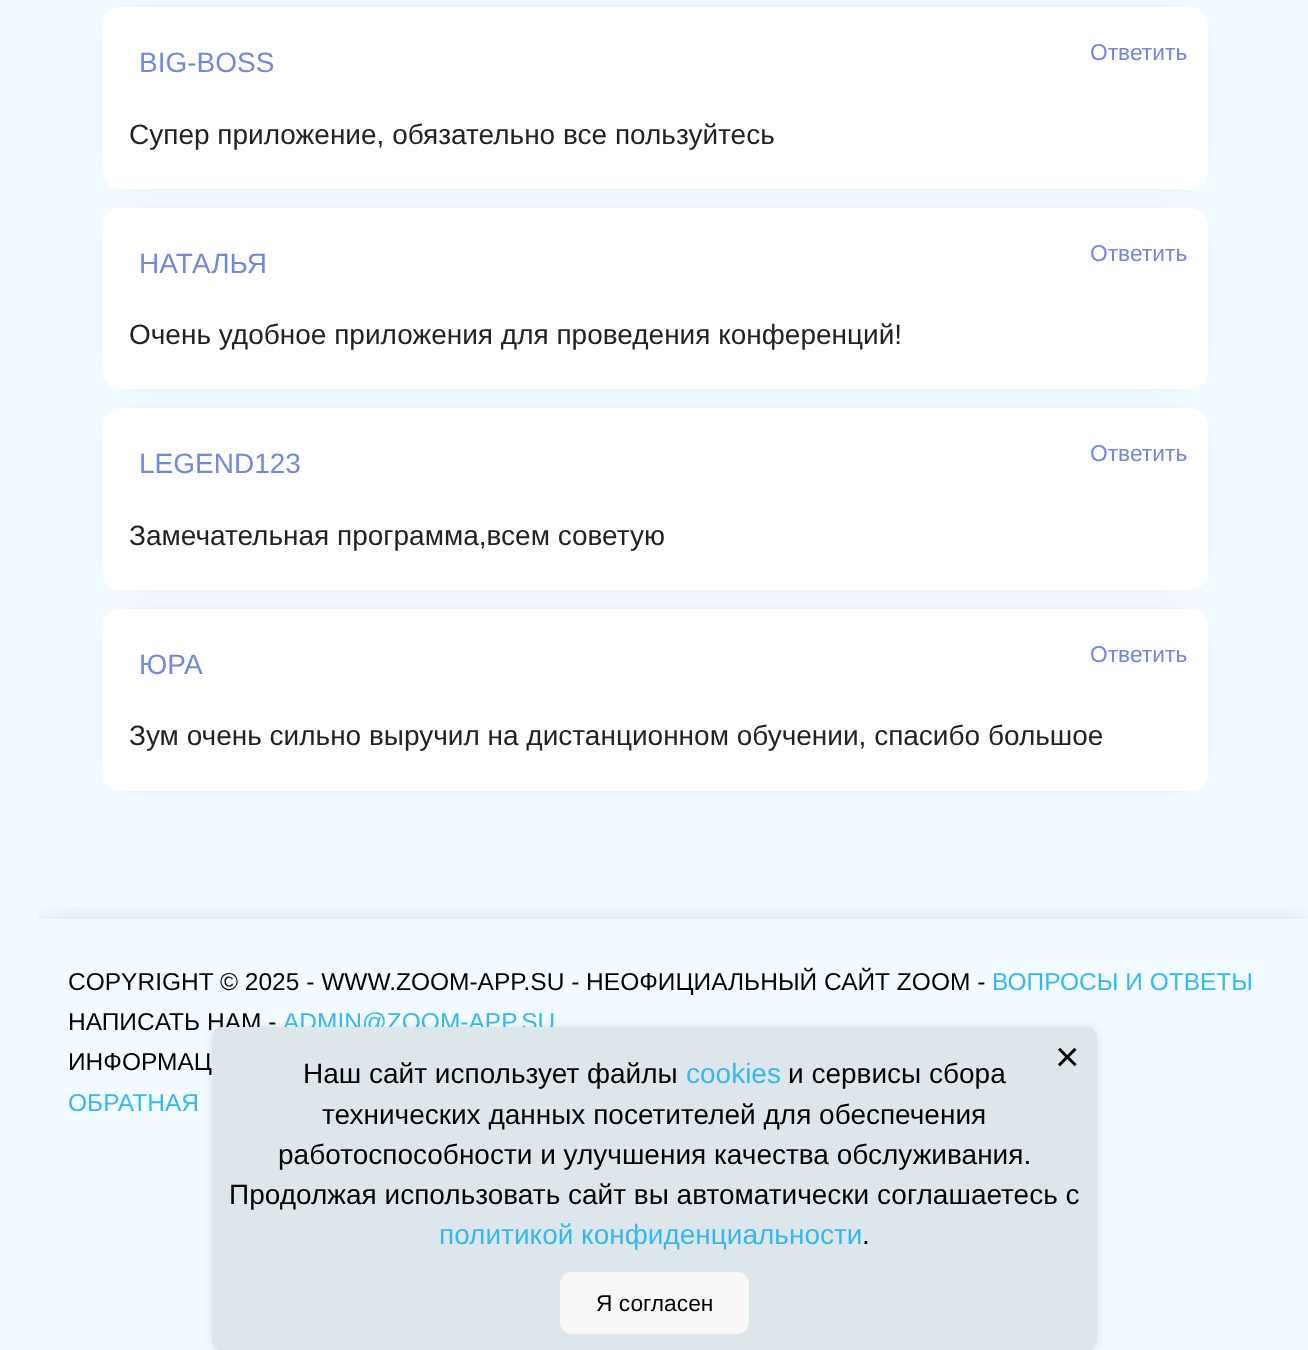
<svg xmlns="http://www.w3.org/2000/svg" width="1308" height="1350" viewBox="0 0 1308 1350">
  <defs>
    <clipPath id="clip1"><path d="M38 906h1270v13H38z"/></clipPath>
  </defs>
  <rect width="100%" height="100%" fill="#f2fbff"/>
  <path d="M128 33h1053v130H128z" fill="#00000080" filter="blur(17.5px)"/>
  <path d="M120 7H1190C1200 7 1208 15 1208 25V96H102V25C102 15 110 7 120 7Z" fill="#fff"/>
  <path d="M128 235h1053v127H128z" fill="#00000080" filter="blur(17.5px)"/>
  <path d="M102 96H1208V171C1208 181 1200 189 1190 189H120C110 189 102 181 102 171Z" fill="#fff"/>
  <path d="M120 208H1190C1200 208 1208 216 1208 226V298H102V226C102 216 110 208 120 208Z" fill="#fff"/>
  <path d="M128 434h1053v130H128z" fill="#00000080" filter="blur(17.5px)"/>
  <path d="M102 298H1208V371C1208 381 1200 389 1190 389H120C110 389 102 381 102 371Z" fill="#fff"/>
  <path d="M120 408H1190C1200 408 1208 416 1208 426V497H102V426C102 416 110 408 120 408Z" fill="#fff"/>
  <path d="M128 635h1053v130H128z" fill="#00000080" filter="blur(17.5px)"/>
  <path d="M102 497H1208V572C1208 582 1200 590 1190 590H120C110 590 102 582 102 572Z" fill="#fff"/>
  <path d="M120 609H1190C1200 609 1208 617 1208 627V698H102V627C102 617 110 609 120 609Z" fill="#fff"/>
  <path d="M102 698H1208V773C1208 783 1200 791 1190 791H120C110 791 102 783 102 773Z" fill="#fff"/>
  <g clip-path="url(#clip1)">
    <path d="M44 928h1262v344H44z" fill="#00000033" filter="blur(17.5px)"/>
  </g>
  <rect x="212" y="1027" width="885" height="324" rx="11" fill="#0000001a" filter="blur(5px)"/>
  <text x="139" y="72" font-family="Liberation Sans" font-size="28" fill="#7289da">BIG-BOSS</text>
  <text x="1090" y="60" font-family="Liberation Sans" font-size="22.75" fill="#7289da">Ответить</text>
  <text x="129" y="144" font-family="Liberation Sans" font-size="28" fill="#222">Супер приложение, обязательно все пользуйтесь</text>
  <text x="139" y="273" font-family="Liberation Sans" font-size="28" fill="#7289da">НАТАЛЬЯ</text>
  <text x="1090" y="261" font-family="Liberation Sans" font-size="22.75" fill="#7289da">Ответить</text>
  <text x="129" y="344" font-family="Liberation Sans" font-size="28" fill="#222">Очень удобное приложения для проведения конференций!</text>
  <text x="139" y="473" font-family="Liberation Sans" font-size="28" fill="#7289da">LEGEND123</text>
  <text x="1090" y="461" font-family="Liberation Sans" font-size="22.75" fill="#7289da">Ответить</text>
  <text x="129" y="545" font-family="Liberation Sans" font-size="28" fill="#222">Замечательная программа,всем советую</text>
  <text x="139" y="674" font-family="Liberation Sans" font-size="28" fill="#7289da">ЮРА</text>
  <text x="1090" y="662" font-family="Liberation Sans" font-size="22.75" fill="#7289da">Ответить</text>
  <text x="129" y="745" font-family="Liberation Sans" font-size="28" fill="#222">Зум очень сильно выручил на дистанционном обучении, спасибо большое</text>
  <text x="68" y="990" font-family="Liberation Sans" font-size="24.5" fill="#000">COPYRIGHT © 2025 - WWW.ZOOM-APP.SU - НЕОФИЦИАЛЬНЫЙ САЙТ ZOOM -</text>
  <text x="992" y="990" font-family="Liberation Sans" font-size="24.5" fill="#38b7ee">ВОПРОСЫ И ОТВЕТЫ</text>
  <text x="68" y="1030" font-family="Liberation Sans" font-size="24.5" fill="#000">НАПИCАТЬ НАМ -</text>
  <text x="283" y="1030" font-family="Liberation Sans" font-size="24.5" fill="#38b7ee">ADMIN@ZOOM-APP.SU</text>
  <text x="68" y="1070" font-family="Liberation Sans" font-size="24.5" fill="#000">ИНФОРМАЦ</text>
  <rect x="212" y="1027" width="885" height="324" rx="11" fill="#dde6eb"/>
  <text x="1055" y="1071" font-family="Liberation Sans" font-size="42" fill="#000">×</text>
  <text x="303" y="1083" font-family="Liberation Sans" font-size="28" fill="#000">Наш сайт использует файлы</text>
  <text x="686" y="1083" font-family="Liberation Sans" font-size="28" fill="#38b7ee">cookies</text>
  <g font-family="Liberation Sans" font-size="28" fill="#000">
    <text x="788" y="1083">и сервисы сбора</text>
    <text x="322" y="1124">технических данных посетителей для обеспечения</text>
    <text x="278" y="1164">работоспособности и улучшения качества обслуживания.</text>
    <text x="229" y="1204">Продолжая использовать сайт вы автоматически соглашаетесь с</text>
  </g>
  <text x="439" y="1244" font-family="Liberation Sans" font-size="28" fill="#38b7ee">политикой конфиденциальности</text>
  <text x="862" y="1244" font-family="Liberation Sans" font-size="28" fill="#000">.</text>
  <rect x="560" y="1272" width="189" height="62" rx="12" fill="#f8f8f8"/>
  <text x="596" y="1311" font-family="Liberation Sans" font-size="22.75" fill="#000">Я согласен</text>
  <text x="68" y="1111" font-family="Liberation Sans" font-size="24.5" fill="#38b7ee">ОБРАТНАЯ</text>
</svg>
